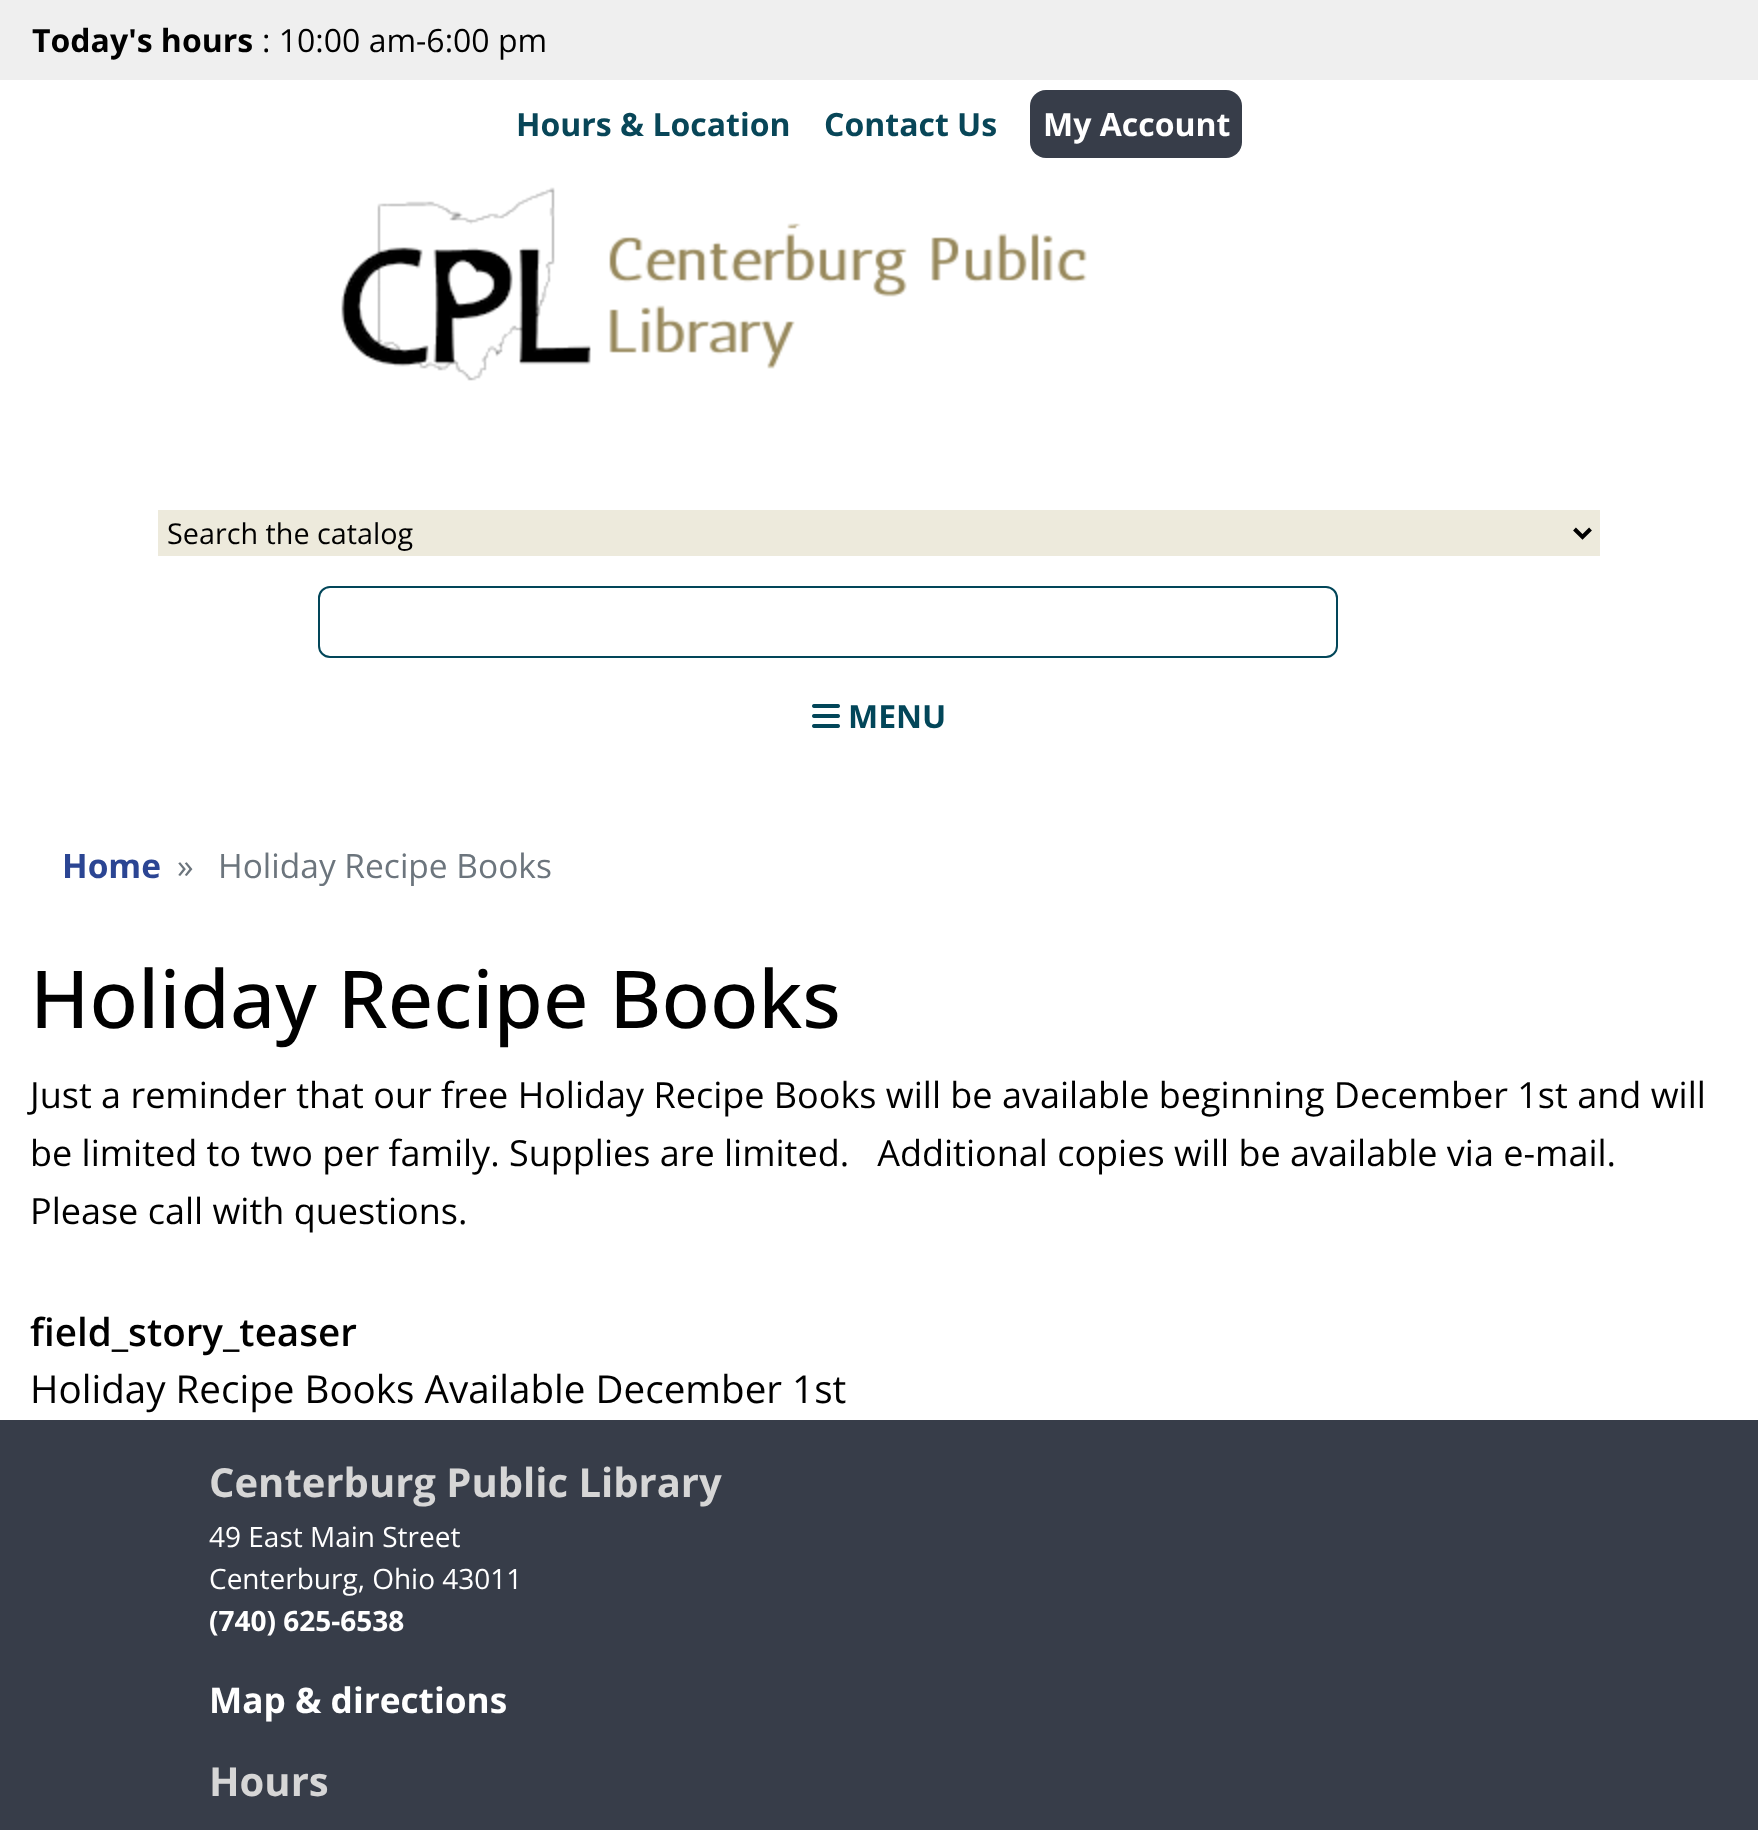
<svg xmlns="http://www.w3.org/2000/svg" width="1758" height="1830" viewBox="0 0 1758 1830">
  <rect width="100%" height="100%" fill="#fff"/>
  <path d="M0 0h1758v80H0z" fill="#efefef"/>
  <rect x="1030" y="90" width="212" height="68" rx="16" fill="#373d49"/>
  <image x="341" y="187" width="746" height="194" href="img/1.png"/>
  <path d="M158 510h1442v46H158z" fill="#edeadc"/>
  <path d="M1574.5 529L1582.5 537L1590.5 529" fill="none" stroke="#000" stroke-width="4"/>
  <rect x="319" y="587" width="1018" height="70" rx="11" fill="none" stroke="#024659" stroke-width="2"/>
  <image x="812" y="704" width="28" height="24" href="img/2.png"/>
  <path d="M0 1420h1758v410H0z" fill="#373d49"/>
  <text x="32" y="52" font-family="Open Sans" font-size="32" font-weight="bold" fill="#000">Today's hours</text>
  <text x="262" y="52" font-family="Open Sans" font-size="32" fill="#000">: 10:00 am-6:00 pm</text>
  <g font-family="Open Sans" font-size="32" font-weight="bold" fill="#084658">
    <text x="516" y="136">Hours &amp; Location</text>
    <text x="824" y="136">Contact Us</text>
  </g>
  <text x="1043" y="136" font-family="Open Sans" font-size="32" font-weight="bold" fill="#fff">My Account</text>
  <text x="167" y="544" font-family="Open Sans" font-size="28.75" fill="#000">Search the catalog</text>
  <text x="848" y="728" font-family="Open Sans" font-size="32" font-weight="bold" fill="#024659">MENU</text>
  <text x="62" y="878" font-family="Open Sans" font-size="33.5" font-weight="bold" fill="#2b4593">Home</text>
  <g font-family="Open Sans" font-size="33.5" fill="#6c757d">
    <text x="177" y="878">»</text>
    <text x="218" y="878">Holiday Recipe Books</text>
  </g>
  <text x="30" y="1028" font-family="Open Sans" font-size="80" font-weight="500" fill="#000">Holiday Recipe Books</text>
  <g font-family="Open Sans" font-size="36" fill="#000">
    <text x="30" y="1108">Just a reminder that our free Holiday Recipe Books will be available beginning December 1st and will</text>
    <text x="30" y="1166" xml:space="preserve">be limited to two per family. Supplies are limited.   Additional copies will be available via e-mail.</text>
    <text x="30" y="1224">Please call with questions.</text>
  </g>
  <text x="30" y="1346" font-family="Open Sans" font-size="38.6" font-weight="600" fill="#000">field_story_teaser</text>
  <text x="30" y="1403" font-family="Open Sans" font-size="38.6" fill="#000">Holiday Recipe Books Available December 1st</text>
  <text x="209" y="1497" font-family="Open Sans" font-size="40" font-weight="bold" fill="#d6d6d6">Centerburg Public Library</text>
  <g font-family="Open Sans" font-size="28" fill="#fff">
    <text x="209" y="1547">49 East Main Street</text>
    <text x="209" y="1589">Centerburg, Ohio 43011</text>
  </g>
  <text x="209" y="1631" font-family="Open Sans" font-size="28" font-weight="bold" fill="#fff">(740) 625-6538</text>
  <text x="209" y="1713" font-family="Open Sans" font-size="35.25" font-weight="bold" fill="#fff">Map &amp; directions</text>
  <text x="209" y="1796" font-family="Open Sans" font-size="40" font-weight="bold" fill="#d6d6d6">Hours</text>
</svg>
